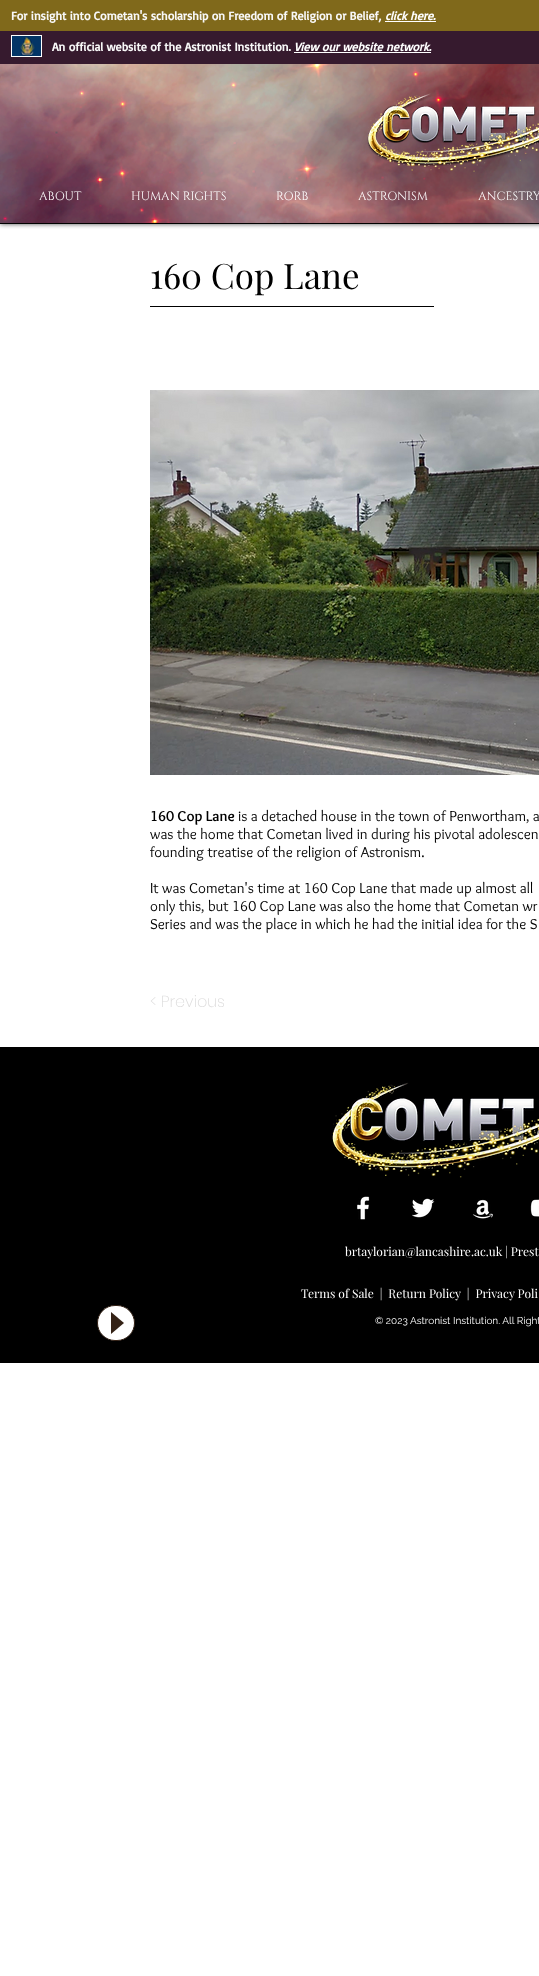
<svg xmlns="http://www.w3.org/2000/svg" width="539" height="1976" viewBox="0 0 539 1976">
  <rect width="100%" height="100%" fill="#fff"/>
  <path d="M0 0h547v224H0z" fill="#000000b3" filter="blur(2.5px)"/>
  <path d="M0 223h539v1H0z" fill="#000"/>
  <path d="M0 0h539v31H0z" fill="#80691b"/>
  <path d="M385 21h51v1H385z" fill="#fff"/>
  <path d="M0 31h539v33H0z" fill="#361a2e"/>
  <path d="M11 35h31v22H11z" fill="#fff"/>
  <image x="12" y="36" width="29" height="20" href="img/1.png"/>
  <path d="M294 52h137v1H294z" fill="#fff"/>
  <image x="0" y="64" width="539" height="159" href="img/2.png"/>
  <image x="367" y="93" width="172" height="79" href="img/3.png"/>
  <path d="M150 306h284v1H150z" fill="#000"/>
  <image x="150" y="390" width="389" height="385" href="img/4.png"/>
  <path d="M0 1047h539v316H0z" fill="#000"/>
  <image x="332" y="1082" width="207" height="96" href="img/5.png"/>
  <image x="357" y="1196" width="13" height="24" href="img/6.png"/>
  <image x="412" y="1198" width="23" height="20" href="img/7.png"/>
  <image x="472" y="1199" width="21" height="20" href="img/8.png"/>
  <image x="530" y="1199" width="9" height="18" href="img/9.png"/>
  <rect x="97.5" y="1305.5" width="37" height="35" rx="17.5" fill="#fff" stroke="#342216"/>
  <path d="M111 1334V1312L124 1323Z" fill="#342216"/>
  <text x="11" y="20" font-family="Basic" font-size="12" font-weight="bold" fill="#f8f8f8">For insight into Cometan's scholarship on Freedom of Religion or Belief,</text>
  <text x="385" y="20" font-family="Basic" font-size="12" font-weight="bold" font-style="italic" fill="#fff">click here.</text>
  <text x="52" y="51" font-family="Basic" font-size="12" font-weight="bold" fill="#f8f8f8">An official website of the Astronist Institution.</text>
  <text x="294" y="51" font-family="Basic" font-size="12" font-weight="bold" font-style="italic" fill="#fff">View our website network.</text>
  <g font-family="Cinzel" font-size="12" fill="#fff">
    <text x="39" y="200">ABOUT</text>
    <text x="131" y="200">HUMAN RIGHTS</text>
    <text x="276" y="200">RORB</text>
    <text x="358" y="200">ASTRONISM</text>
    <text x="478" y="200">ANCESTRY</text>
  </g>
  <text x="150" y="289" font-family="Playfair Display" font-size="35" fill="#000">160 Cop Lane</text>
  <text x="150" y="821" font-family="Overlock" font-size="15" font-weight="bold" fill="#000">160 Cop Lane</text>
  <g font-family="Overlock" font-size="15" fill="#000">
    <text x="238" y="821">is a detached house in the town of Penwortham, a</text>
    <text x="150" y="839">was the home that Cometan lived in during his pivotal adolescen</text>
    <text x="150" y="857">founding treatise of the religion of Astronism.</text>
    <text x="150" y="893">It was Cometan's time at 160 Cop Lane that made up almost all</text>
    <text x="150" y="911">only this, but 160 Cop Lane was also the home that Cometan wr</text>
    <text x="150" y="929">Series and was the place in which he had the initial idea for the S</text>
  </g>
  <text x="150" y="1007" font-family="Poppins" font-size="16" font-weight="200" fill="#dddcdc">&lt; Previous</text>
  <g font-family="Playfair Display" font-size="12" fill="#fff">
    <text x="345" y="1256">brtaylorian@lancashire.ac.uk | Prest</text>
    <text x="301" y="1298" xml:space="preserve">Terms of Sale  |  Return Policy  |  Privacy Poli</text>
  </g>
  <text x="375" y="1324" font-family="Raleway" font-size="10" fill="#fff">© 2023 Astronist Institution. All Right</text>
</svg>
